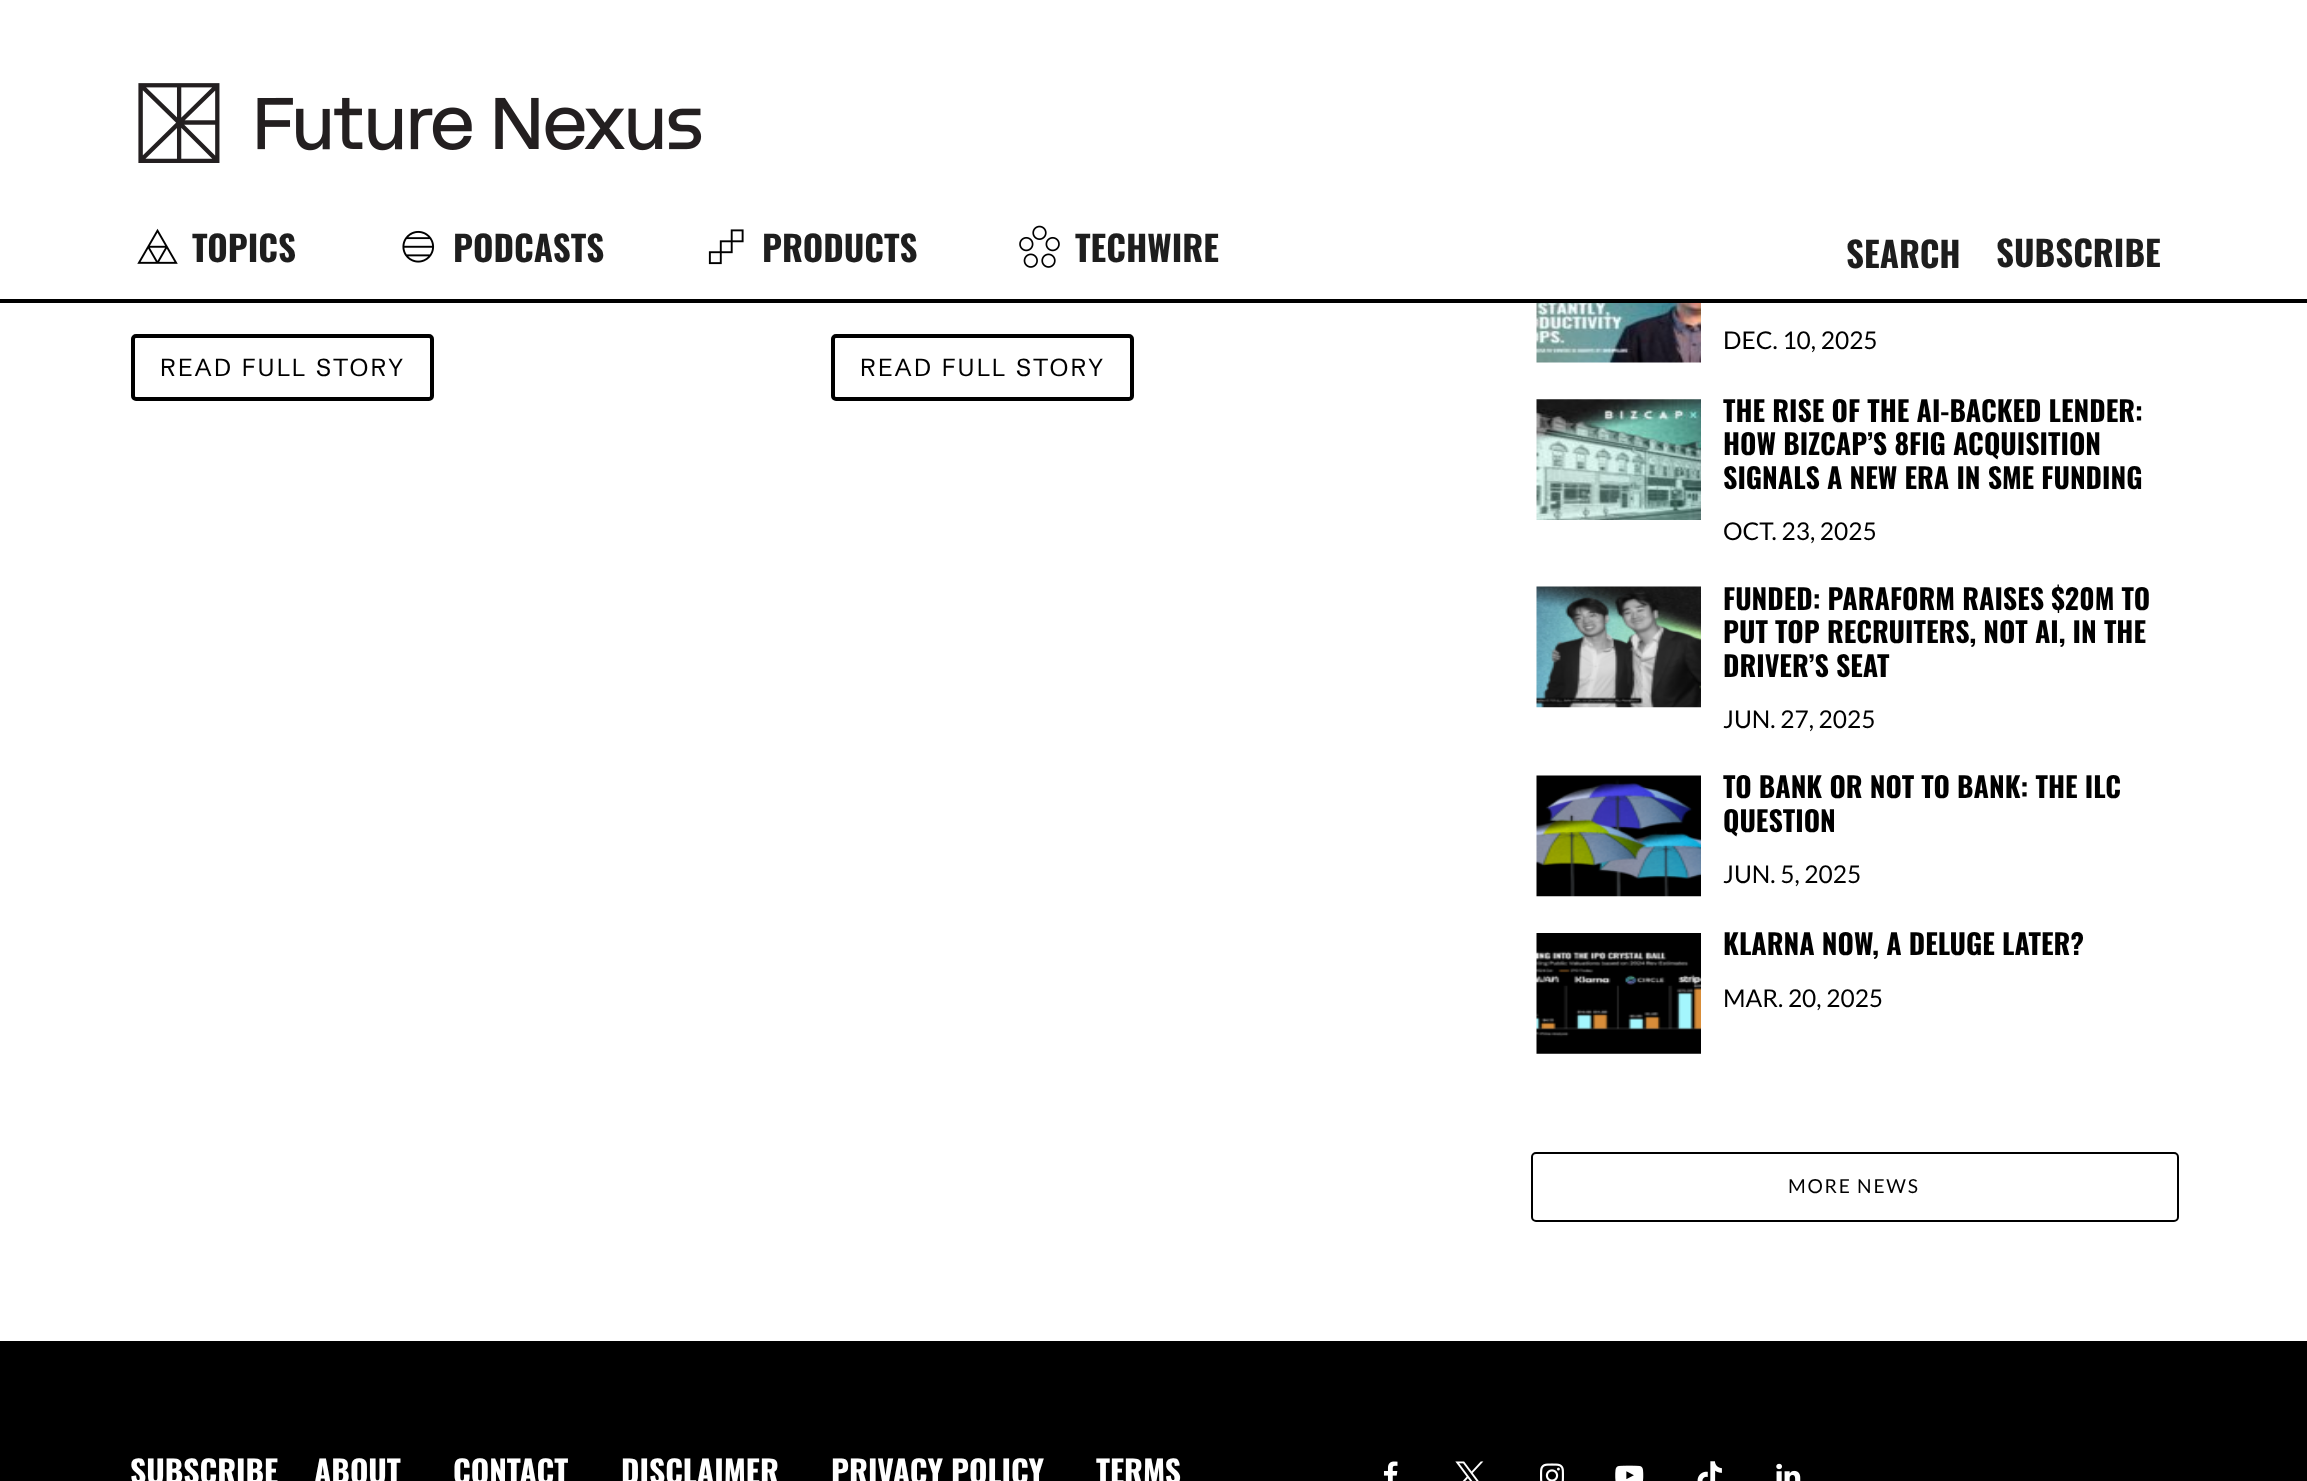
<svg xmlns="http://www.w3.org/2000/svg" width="2307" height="1481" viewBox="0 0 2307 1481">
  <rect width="100%" height="100%" fill="#fff"/>
  <path d="M0 299h2307v4H0z" fill="#000"/>
  <image x="138" y="83" width="564" height="80" href="img/1.png"/>
  <image x="137" y="228" width="41" height="36" href="img/2.png"/>
  <image x="402" y="230" width="33" height="33" href="img/3.png"/>
  <image x="708" y="229" width="36" height="36" href="img/4.png"/>
  <image x="1019" y="225" width="41" height="43" href="img/5.png"/>
  <rect x="133" y="336" width="299" height="63" rx="3" fill="none" stroke="#000" stroke-width="4"/>
  <rect x="833" y="336" width="299" height="63" rx="3" fill="none" stroke="#000" stroke-width="4"/>
  <image x="1536" y="303" width="165" height="60" href="img/6.png"/>
  <image x="1536" y="399" width="165" height="121" href="img/7.png"/>
  <image x="1536" y="586" width="165" height="122" href="img/8.png"/>
  <image x="1536" y="775" width="165" height="122" href="img/9.png"/>
  <image x="1536" y="933" width="165" height="121" href="img/10.png"/>
  <rect x="1532" y="1153" width="646" height="68" rx="4" fill="none" stroke="#000" stroke-width="2"/>
  <path d="M0 1341h2307v140H0z" fill="#000"/>
  <image x="1383" y="1461" width="15" height="20" href="img/11.png"/>
  <image x="1455" y="1461" width="29" height="20" href="img/12.png"/>
  <image x="1540" y="1463" width="24" height="18" href="img/13.png"/>
  <image x="1615" y="1465" width="29" height="16" href="img/14.png"/>
  <image x="1697" y="1461" width="25" height="20" href="img/15.png"/>
  <image x="1776" y="1463" width="25" height="18" href="img/16.png"/>
  <g font-family="Oswald" font-size="35" font-weight="bold" fill="#1e1e1e">
    <text x="192" y="262">TOPICS</text>
    <text x="453" y="262">PODCASTS</text>
    <text x="762" y="262">PRODUCTS</text>
    <text x="1075" y="262">TECHWIRE</text>
    <text x="1846" y="268">SEARCH</text>
    <text x="1996" y="267">SUBSCRIBE</text>
  </g>
  <g font-family="Schibsted Grotesk" font-size="24.5" letter-spacing="2.25" fill="#000">
    <text x="160" y="376">READ FULL STORY</text>
    <text x="860" y="376">READ FULL STORY</text>
  </g>
  <text x="1723" y="349" font-family="Lato" font-size="24.5" fill="#000">DEC. 10, 2025</text>
  <g font-family="Oswald" font-size="28" font-weight="bold" fill="#000">
    <text x="1723" y="422">THE RISE OF THE AI-BACKED LENDER:</text>
    <text x="1723" y="455">HOW BIZCAP’S 8FIG ACQUISITION</text>
    <text x="1723" y="489">SIGNALS A NEW ERA IN SME FUNDING</text>
  </g>
  <text x="1723" y="540" font-family="Lato" font-size="24.5" fill="#000">OCT. 23, 2025</text>
  <g font-family="Oswald" font-size="28" font-weight="bold" fill="#000">
    <text x="1723" y="610">FUNDED: PARAFORM RAISES $20M TO</text>
    <text x="1723" y="643">PUT TOP RECRUITERS, NOT AI, IN THE</text>
    <text x="1723" y="677">DRIVER’S SEAT</text>
  </g>
  <text x="1723" y="728" font-family="Lato" font-size="24.5" fill="#000">JUN. 27, 2025</text>
  <g font-family="Oswald" font-size="28" font-weight="bold" fill="#000">
    <text x="1723" y="798">TO BANK OR NOT TO BANK: THE ILC</text>
    <text x="1723" y="832">QUESTION</text>
  </g>
  <text x="1723" y="883" font-family="Lato" font-size="24.5" fill="#000">JUN. 5, 2025</text>
  <text x="1723" y="955" font-family="Oswald" font-size="28" font-weight="bold" fill="#000">KLARNA NOW, A DELUGE LATER?</text>
  <text x="1723" y="1007" font-family="Lato" font-size="24.5" fill="#000">MAR. 20, 2025</text>
  <text x="1788" y="1193" font-family="Lato" font-size="19.25" letter-spacing="1.75" fill="#000">MORE NEWS</text>
  <g font-family="Oswald" font-size="31.5" font-weight="bold" fill="#fff">
    <text x="130" y="1484">SUBSCRIBE</text>
    <text x="314" y="1484">ABOUT</text>
    <text x="453" y="1484">CONTACT</text>
    <text x="621" y="1484">DISCLAIMER</text>
    <text x="831" y="1484">PRIVACY POLICY</text>
    <text x="1096" y="1484">TERMS</text>
  </g>
</svg>
